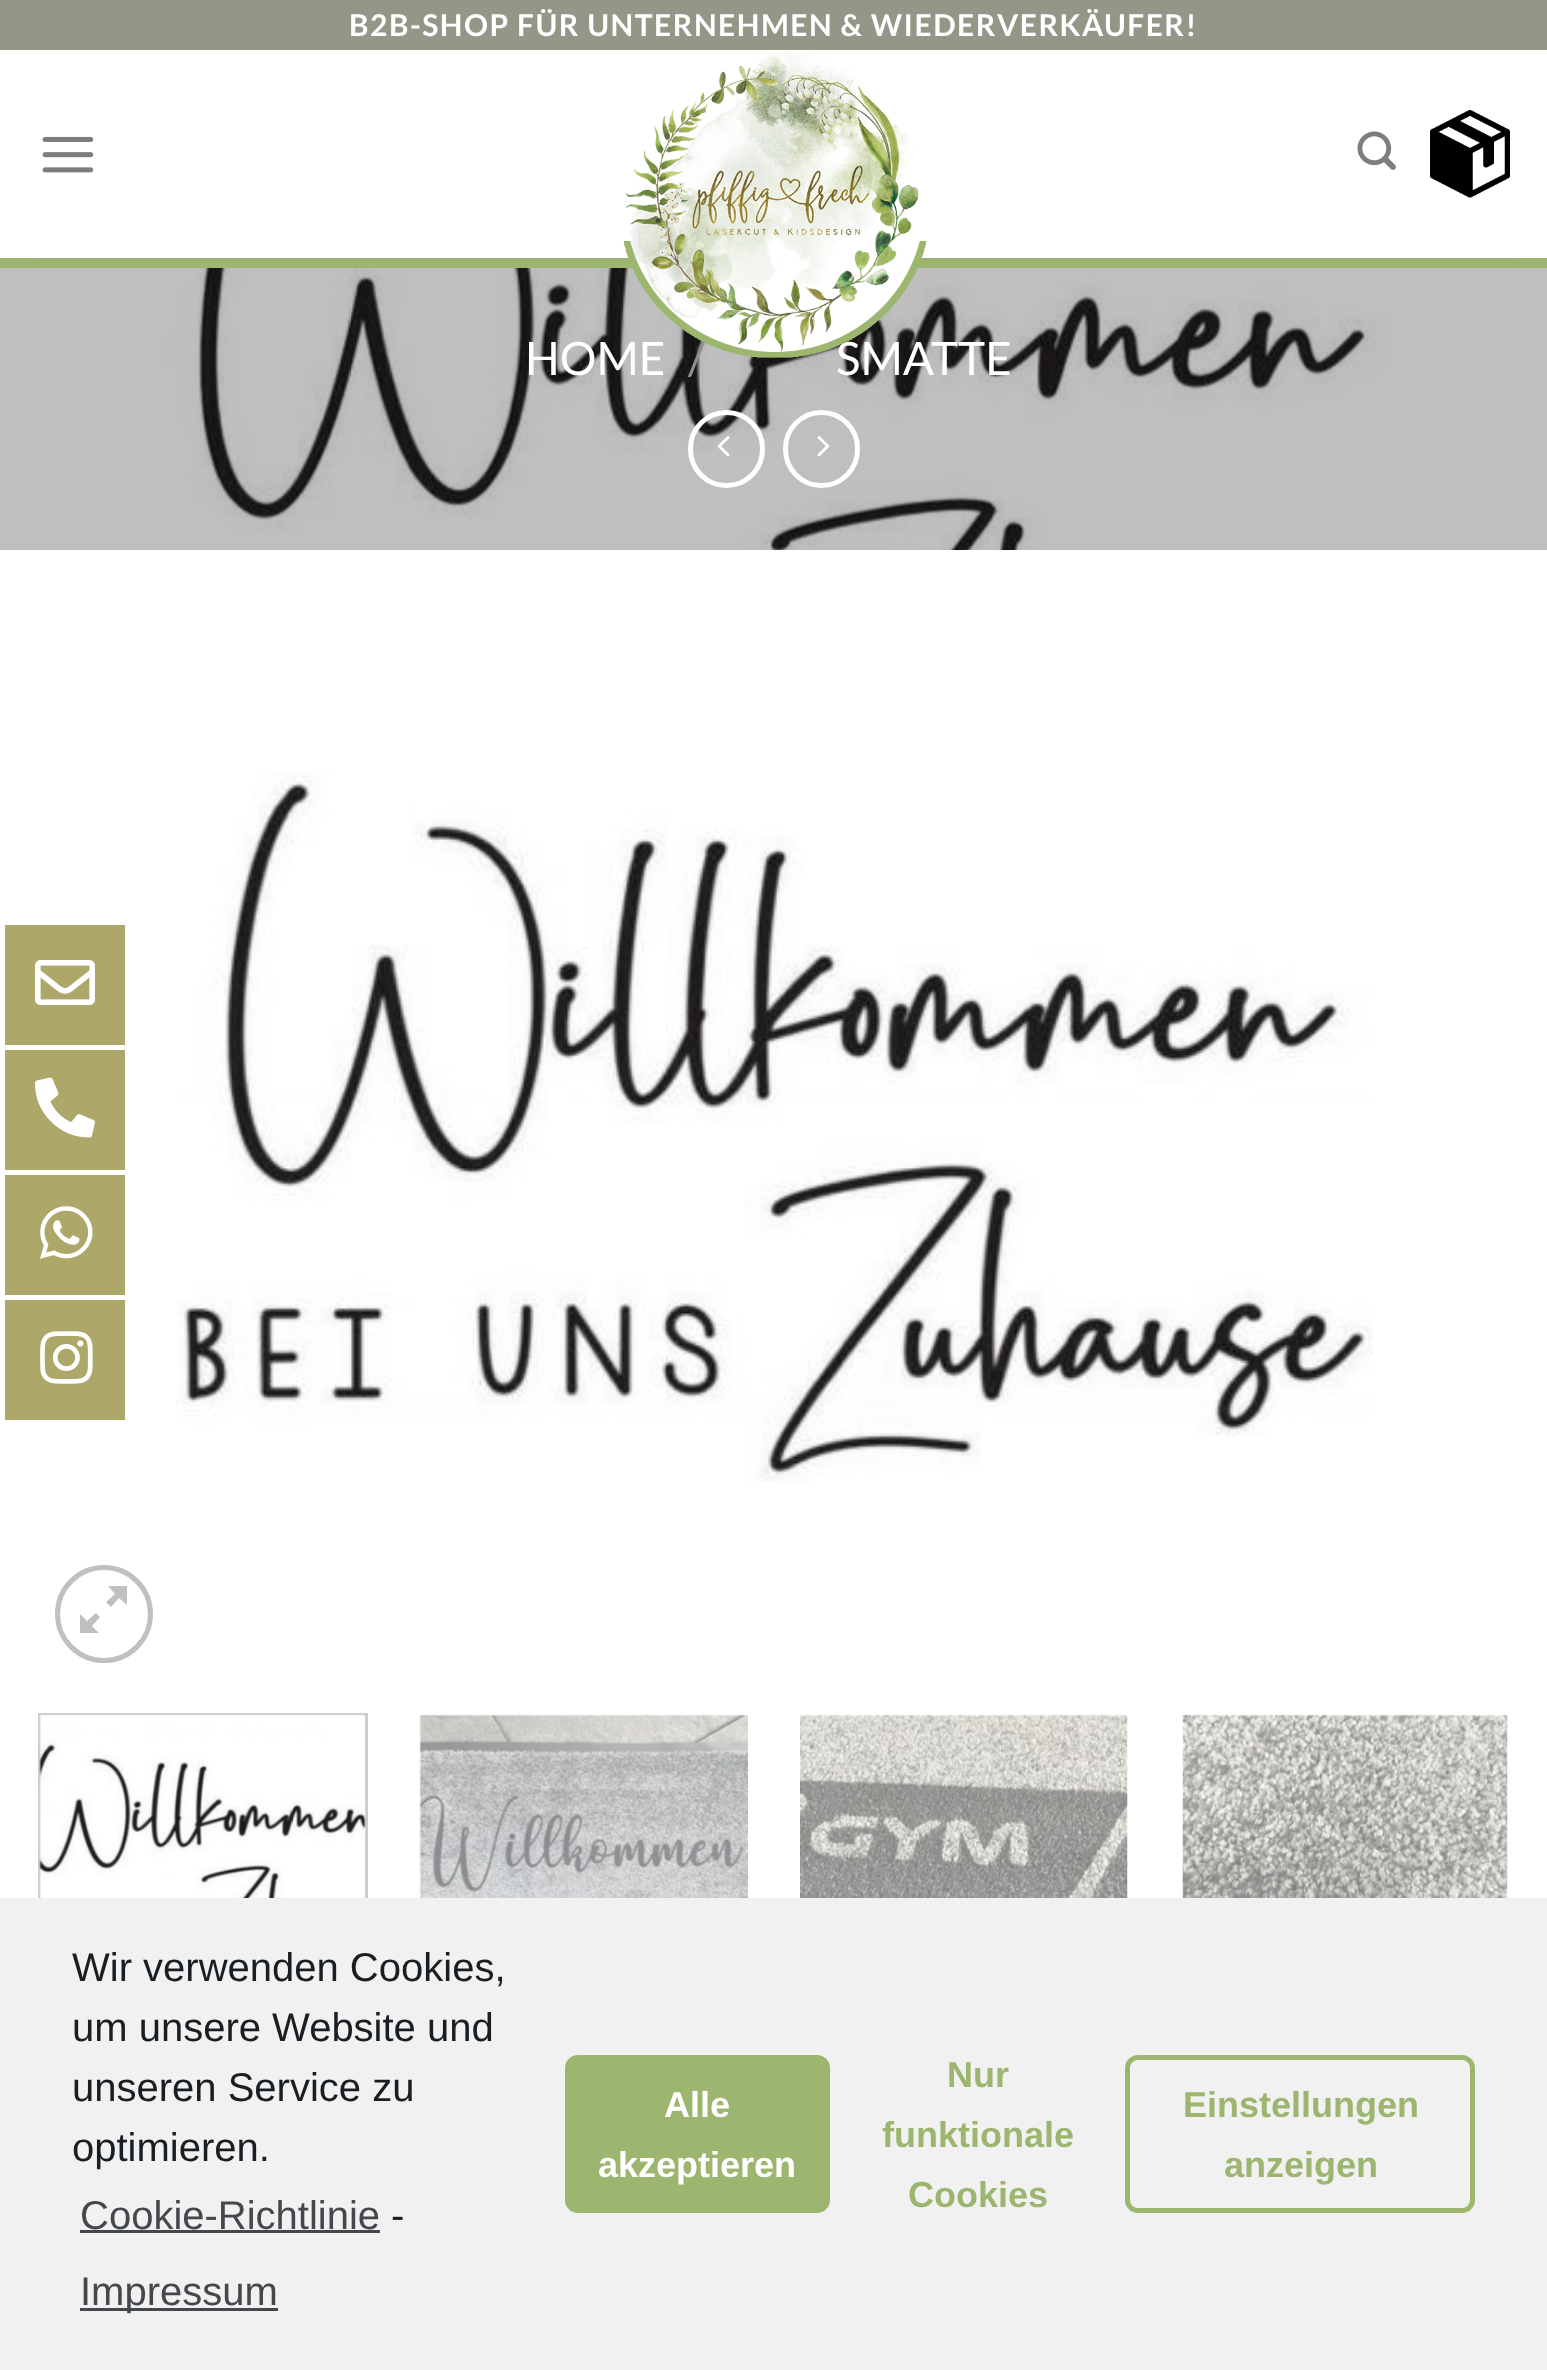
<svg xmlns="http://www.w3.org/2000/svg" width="1547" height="2370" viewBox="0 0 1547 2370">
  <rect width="100%" height="100%" fill="#fff"/>
  <path d="M0 258h1547v10H0z" fill="#9cb66f"/>
  <path d="M0 0h1547v50H0z" fill="#959588"/>
  <image x="42" y="136" width="52" height="37" href="img/1.png"/>
  <image x="1357" y="131" width="39" height="39" href="img/3.png"/>
  <image x="1430" y="110" width="80" height="88" href="img/4.png"/>
  <path d="M38 258h1472v3H38z" fill="#98b070"/>
  <image x="0" y="268" width="1547" height="282" href="img/5.png"/>
  <rect x="690.5" y="412.5" width="72" height="73" rx="36" fill="none" stroke="#fff" stroke-width="5"/>
  <image x="717" y="436" width="13" height="21" href="img/6.png"/>
  <rect x="785.5" y="412.5" width="72" height="73" rx="36" fill="none" stroke="#fff" stroke-width="5"/>
  <image x="817" y="436" width="13" height="21" href="img/7.png"/>
  <image x="176" y="771" width="1197" height="712" href="img/8.png"/>
  <circle cx="104" cy="1614" r="46.5" fill="none" stroke="#c0c0c0" stroke-width="5"/>
  <path d="M127 1586V1605L119 1598L111 1607L106 1602L115 1594L108 1586ZM100 1617L92 1626L99 1633H80V1614L87 1621L96 1613Z" fill="#c0c0c0"/>
  <path d="M39.5 1714.5h327v314H39.5z" fill="none" stroke="#ccc" stroke-width="3"/>
  <image x="39" y="1714" width="327" height="184" href="img/9.png"/>
  <image x="419" y="1714" width="329" height="184" href="img/10.png"/>
  <image x="800" y="1714" width="328" height="184" href="img/11.png"/>
  <image x="1182" y="1714" width="326" height="184" href="img/12.png"/>
  <path d="M5 925h120v120H5z" fill="#ada869"/>
  <image x="35" y="960" width="60" height="45" href="img/13.png"/>
  <path d="M5 1050h120v120H5z" fill="#ada869"/>
  <image x="35" y="1077" width="60" height="61" href="img/14.png"/>
  <path d="M5 1175h120v120H5z" fill="#ada869"/>
  <image x="40" y="1206" width="53" height="53" href="img/15.png"/>
  <path d="M5 1300h120v120H5z" fill="#ada869"/>
  <image x="40" y="1331" width="53" height="53" href="img/16.png"/>
  <path d="M0 1898h1547v472H0z" fill="#f1f1f1"/>
  <path d="M80 2230h300v3H80z" fill="#44484c"/>
  <path d="M80 2308h198v3H80z" fill="#44484c"/>
  <rect x="567.5" y="2057.5" width="260" height="153" rx="10.5" fill="#9cb66f" stroke="#9cb66f" stroke-width="5"/>
  <rect x="1127.5" y="2057.5" width="345" height="153" rx="10.5" fill="none" stroke="#9cb66f" stroke-width="5"/>
  <text x="349" y="36" font-family="Lato" font-size="30" font-weight="bold" letter-spacing="1.5" fill="#fff">B2B-SHOP FÜR UNTERNEHMEN &amp; WIEDERVERKÄUFER!</text>
  <text x="525" y="375" font-family="Lato" font-size="46" fill="#fff">HOME</text>
  <text x="688" y="375" font-family="Lato" font-size="46" fill="#908f90">/</text>
  <text x="836" y="375" font-family="Lato" font-size="46" fill="#fff">SMATTE</text>
  <image x="623" y="52" width="304" height="306" href="img/2.png"/>
  <g font-family="Liberation Sans" font-size="40" fill="#191e23">
    <text x="72" y="1981">Wir verwenden Cookies,</text>
    <text x="72" y="2041">um unsere Website und</text>
    <text x="72" y="2101">unseren Service zu</text>
    <text x="72" y="2161">optimieren.</text>
  </g>
  <text x="80" y="2229" font-family="Liberation Sans" font-size="40" fill="#44484c">Cookie-Richtlinie</text>
  <text x="391" y="2229" font-family="Liberation Sans" font-size="40" fill="#191e23">-</text>
  <text x="80" y="2305" font-family="Liberation Sans" font-size="40" fill="#44484c">Impressum</text>
  <g font-family="Liberation Sans" font-size="36" font-weight="bold" fill="#fff">
    <text x="664" y="2117">Alle</text>
    <text x="598" y="2177">akzeptieren</text>
  </g>
  <g font-family="Liberation Sans" font-size="36" font-weight="bold" fill="#9cb66f">
    <text x="947" y="2087">Nur</text>
    <text x="882" y="2147">funktionale</text>
    <text x="908" y="2207">Cookies</text>
    <text x="1183" y="2117">Einstellungen</text>
    <text x="1224" y="2177">anzeigen</text>
  </g>
</svg>
